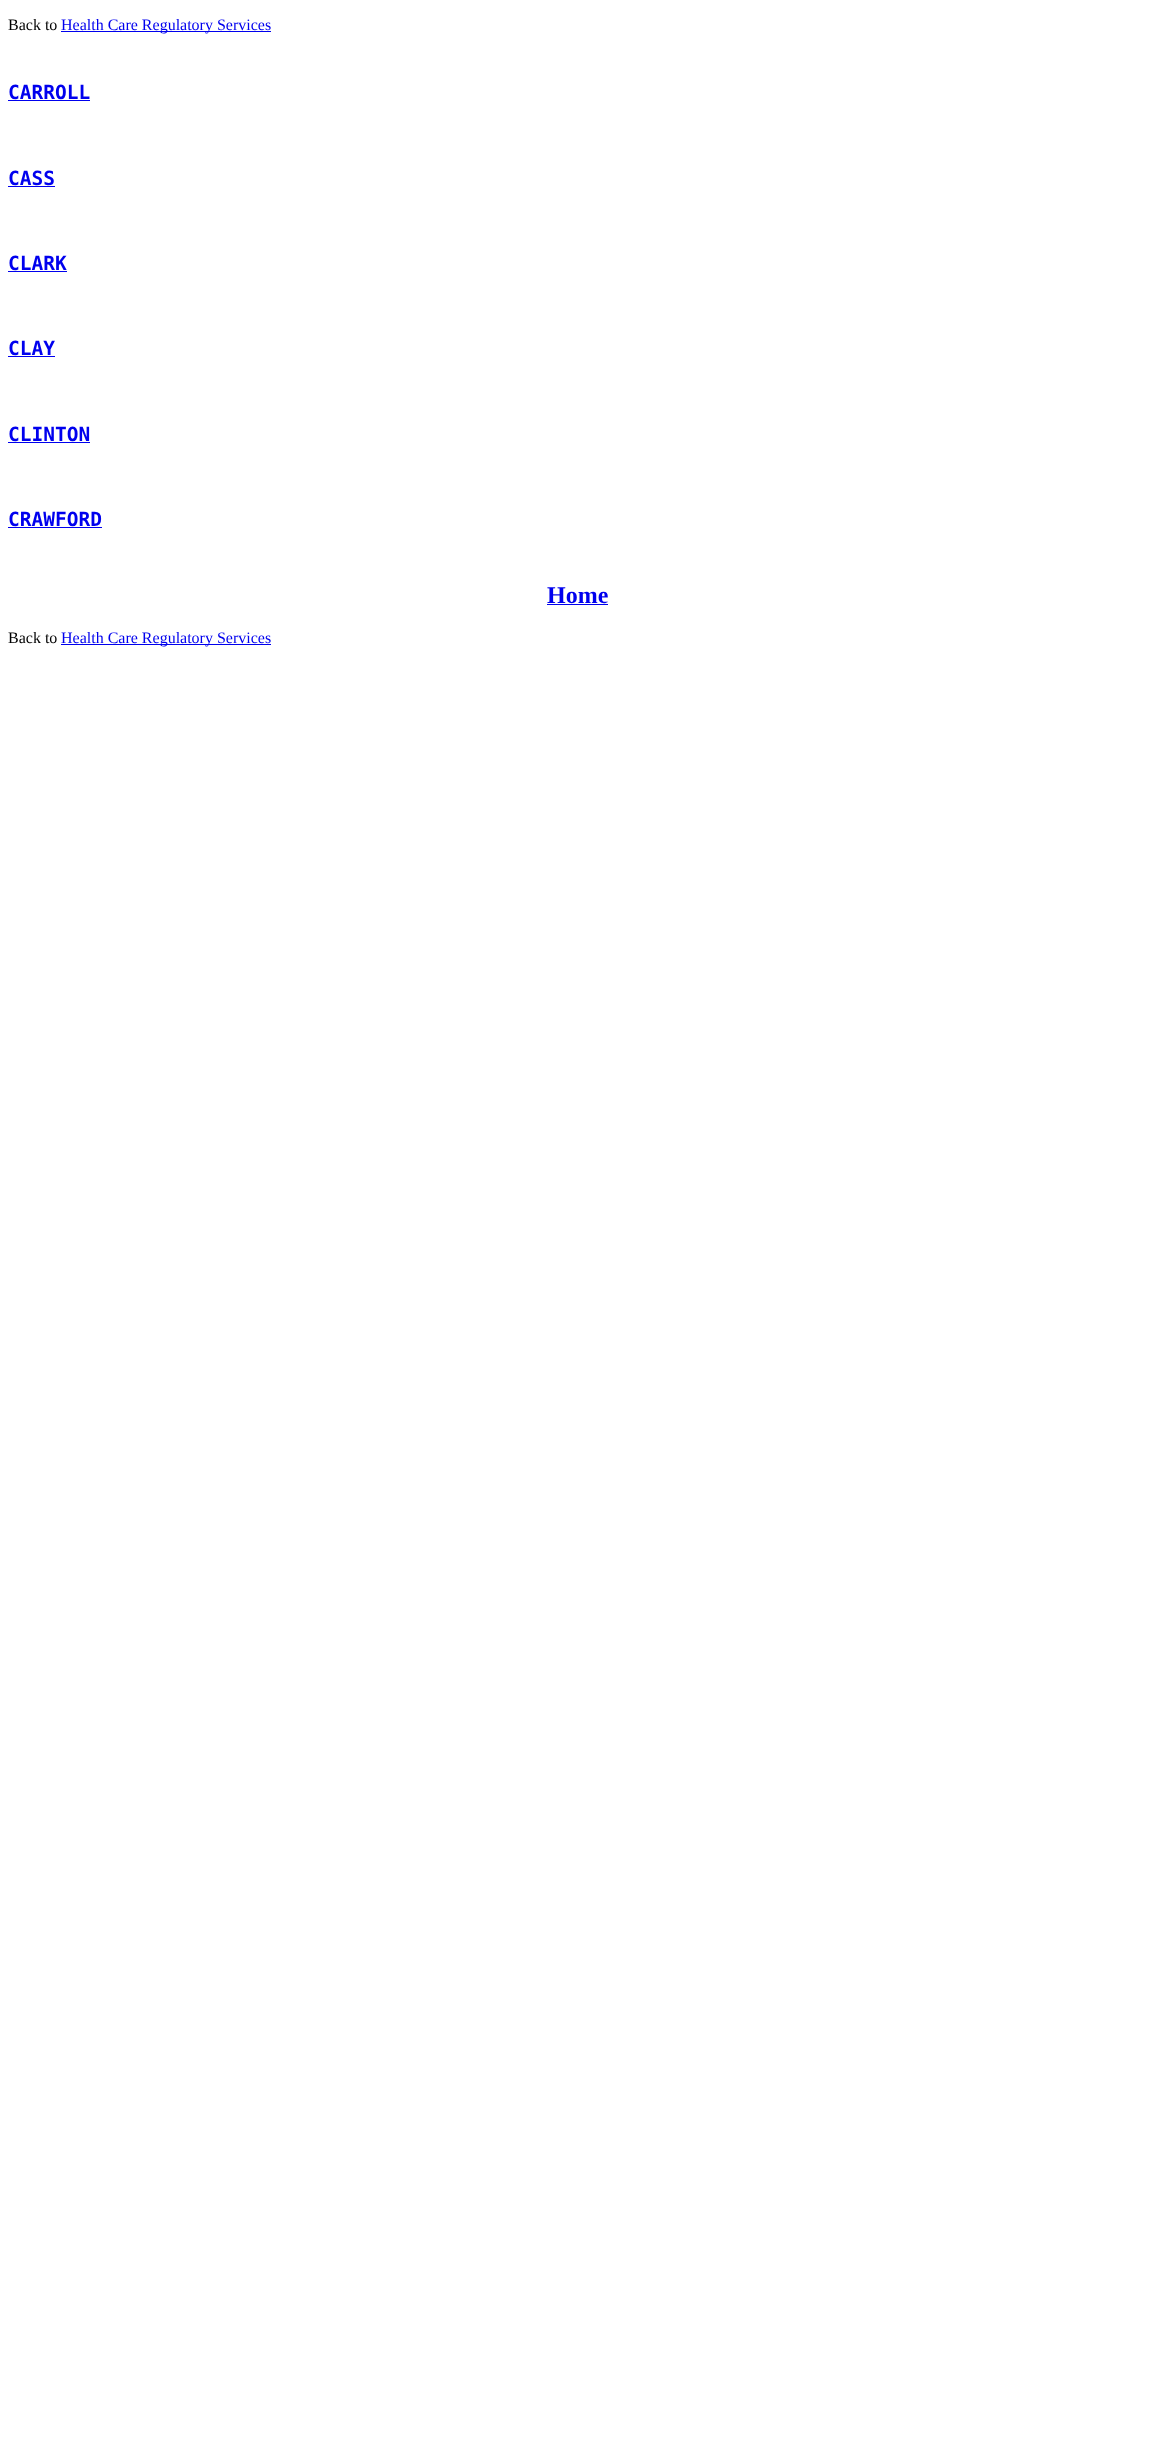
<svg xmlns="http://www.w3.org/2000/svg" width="1155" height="2442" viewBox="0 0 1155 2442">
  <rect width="100%" height="100%" fill="#fff"/>
  <path d="M61 31h210v1H61z" fill="#00e"/>
  <path d="M8 100h82v1H8z" fill="#00e"/>
  <path d="M8 186h47v1H8z" fill="#00e"/>
  <path d="M8 271h59v1H8z" fill="#00e"/>
  <path d="M8 356h47v1H8z" fill="#00e"/>
  <path d="M8 442h82v1H8z" fill="#00e"/>
  <path d="M8 527h94v1H8z" fill="#00e"/>
  <path d="M547 604h61v1H547z" fill="#00e"/>
  <path d="M61 644h210v1H61z" fill="#00e"/>
  <text x="8" y="30" font-family="Liberation Serif" font-size="16" fill="#000">Back to</text>
  <text x="61" y="30" font-family="Liberation Serif" font-size="16" fill="#00e">Health Care Regulatory Services</text>
  <g font-family="DejaVu Sans Mono" font-size="19.5" font-weight="bold" fill="#00e">
    <text x="8" y="99">CARROLL</text>
    <text x="8" y="185">CASS</text>
    <text x="8" y="270">CLARK</text>
    <text x="8" y="355">CLAY</text>
    <text x="8" y="441">CLINTON</text>
    <text x="8" y="526">CRAWFORD</text>
  </g>
  <text x="547" y="603" font-family="Liberation Serif" font-size="24" font-weight="bold" fill="#00e">Home</text>
  <text x="8" y="643" font-family="Liberation Serif" font-size="16" fill="#000">Back to</text>
  <text x="61" y="643" font-family="Liberation Serif" font-size="16" fill="#00e">Health Care Regulatory Services</text>
</svg>
